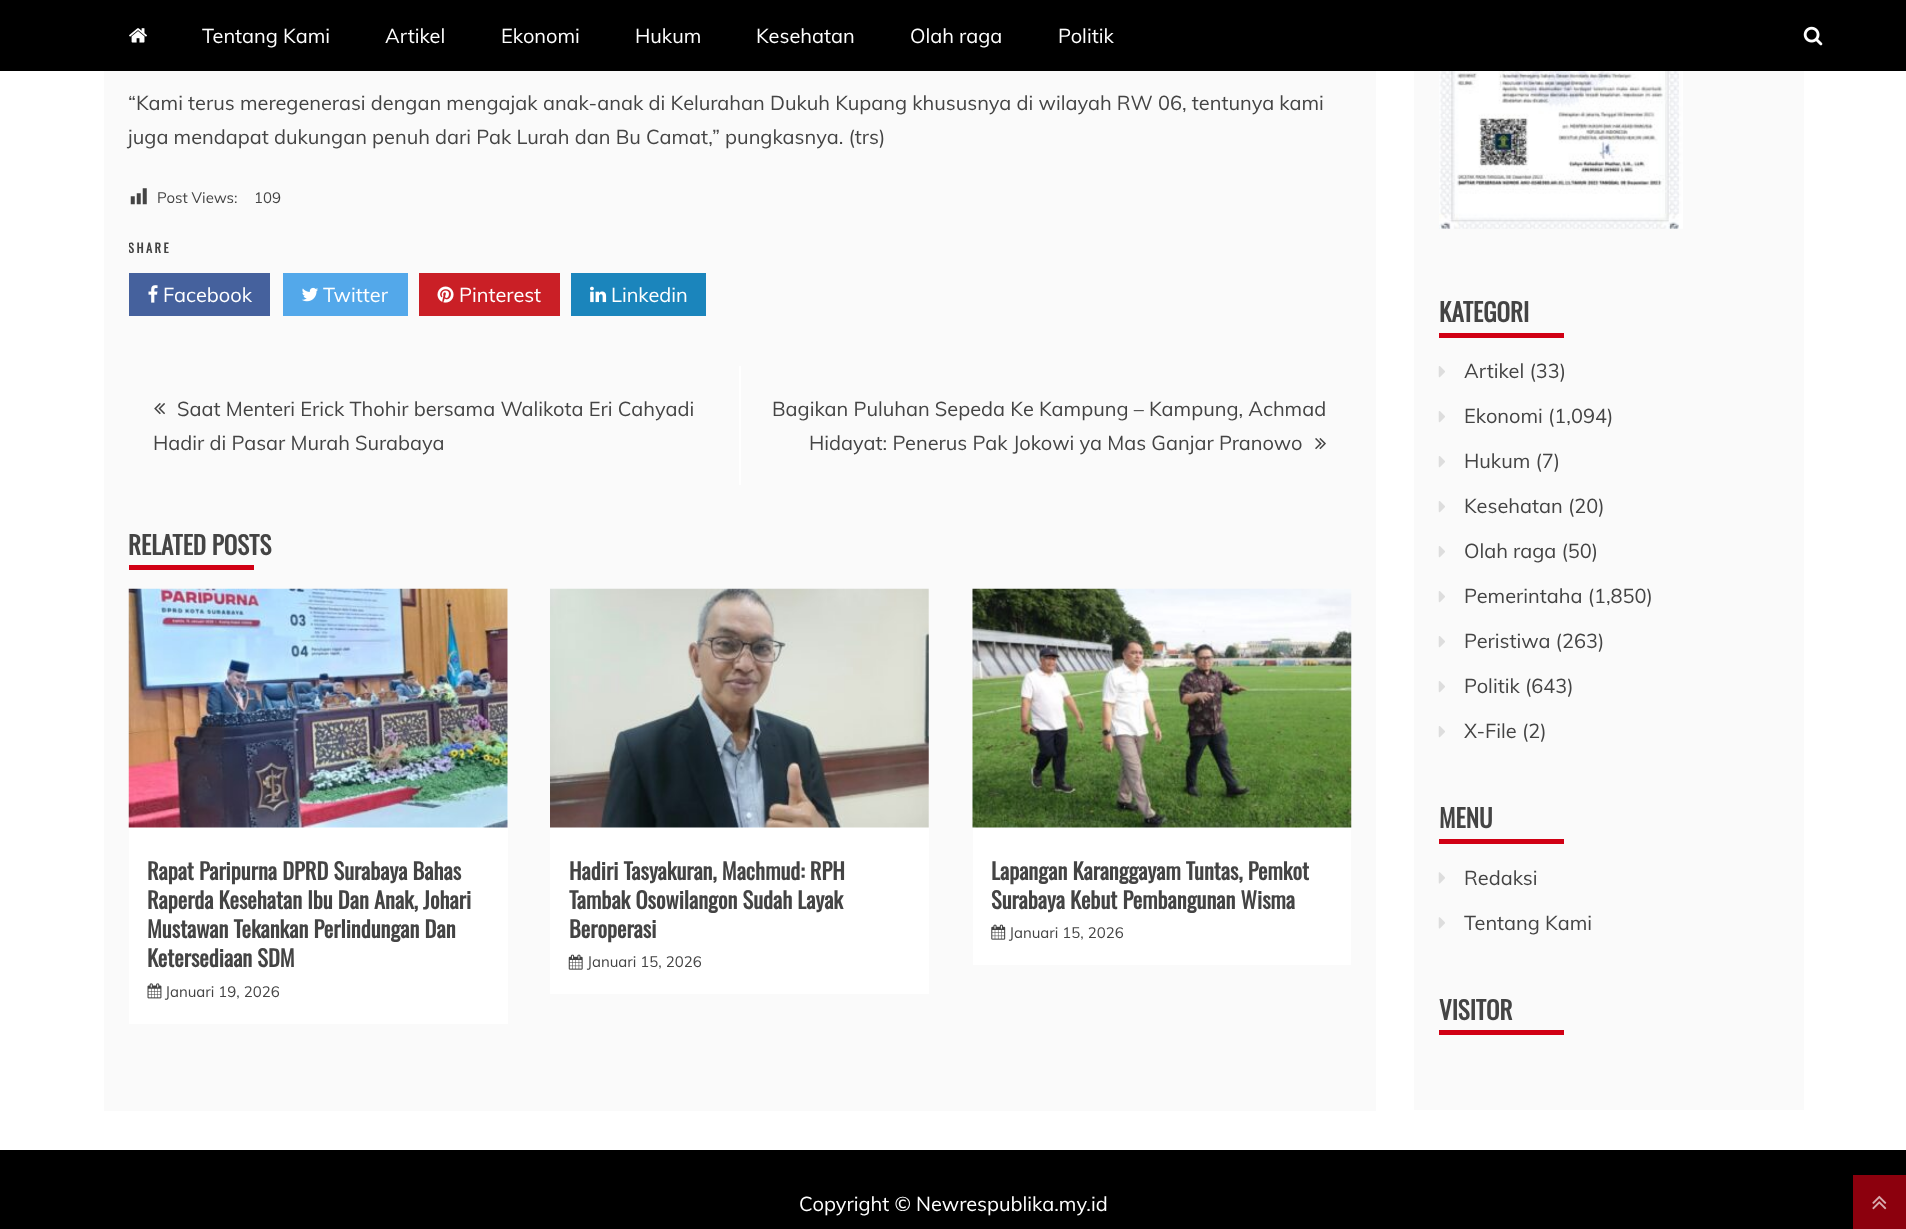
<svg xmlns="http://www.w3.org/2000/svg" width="1906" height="1229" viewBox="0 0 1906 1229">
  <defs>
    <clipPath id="clip1"><path d="M129 236h1222v93H129z"/></clipPath>
  </defs>
  <rect width="100%" height="100%" fill="#fff"/>
  <path d="M0 0h1906v71H0z" fill="#000"/>
  <image x="129" y="28" width="18" height="15" href="img/1.png"/>
  <image x="1803" y="26" width="20" height="20" href="img/2.png"/>
  <path d="M104 71h1272v1040H104z" fill="#fafafa"/>
  <image x="130" y="188" width="17" height="17" href="img/3.png"/>
  <path d="M129 273h141v43H129z" fill="#45619d"/>
  <image x="148" y="285" width="10" height="18" href="img/4.png"/>
  <path d="M283 273h125v43H283z" fill="#53a8ea"/>
  <image x="301" y="287" width="17" height="15" href="img/5.png"/>
  <path d="M419 273h141v43H419z" fill="#ca1f26"/>
  <image x="437" y="286" width="17" height="17" href="img/6.png"/>
  <path d="M571 273h135v43H571z" fill="#1b85bc"/>
  <image x="590" y="286" width="17" height="17" href="img/7.png"/>
  <path d="M739 366h2v119H739z" fill="#fff"/>
  <image x="154" y="403" width="11" height="12" href="img/8.png"/>
  <image x="1315" y="438" width="11" height="12" href="img/9.png"/>
  <path d="M129 565h125v5H129z" fill="#d10014"/>
  <path d="M129 589h379v435H129z" fill="#fff"/>
  <image x="128" y="588" width="380" height="240" href="img/10.png"/>
  <image x="147" y="983" width="15" height="16" href="img/11.png"/>
  <path d="M550 589h379v405H550z" fill="#fff"/>
  <image x="550" y="588" width="379" height="240" href="img/12.png"/>
  <image x="568" y="954" width="15" height="16" href="img/13.png"/>
  <path d="M973 827h378v138H973z" fill="#fff"/>
  <image x="972" y="588" width="380" height="240" href="img/14.png"/>
  <image x="991" y="924" width="15" height="16" href="img/15.png"/>
  <path d="M1414 71h390v1039H1414z" fill="#fafafa"/>
  <image x="1439" y="71" width="244" height="158" href="img/16.png"/>
  <path d="M1439 333h125v5H1439z" fill="#d10014"/>
  <image x="1438" y="366" width="7" height="12" href="img/17.png"/>
  <image x="1438" y="411" width="7" height="12" href="img/17.png"/>
  <image x="1438" y="456" width="7" height="12" href="img/17.png"/>
  <image x="1438" y="501" width="7" height="12" href="img/17.png"/>
  <image x="1438" y="546" width="7" height="12" href="img/17.png"/>
  <image x="1438" y="591" width="7" height="12" href="img/17.png"/>
  <image x="1438" y="636" width="7" height="12" href="img/17.png"/>
  <image x="1438" y="681" width="7" height="12" href="img/17.png"/>
  <image x="1438" y="726" width="7" height="12" href="img/17.png"/>
  <path d="M1439 839h125v5H1439z" fill="#d10014"/>
  <image x="1438" y="872" width="7" height="12" href="img/18.png"/>
  <image x="1438" y="917" width="7" height="12" href="img/18.png"/>
  <path d="M1439 1030h125v5H1439z" fill="#d10014"/>
  <path d="M0 1150h1906v79H0z" fill="#000"/>
  <path d="M1853 1175h53v54H1853z" fill="#8c000d"/>
  <image x="1872" y="1195" width="15" height="15" href="img/19.png"/>
  <g font-family="Muli" font-size="20" fill="#fff">
    <text x="202" y="43">Tentang Kami</text>
    <text x="385" y="43">Artikel</text>
    <text x="501" y="43">Ekonomi</text>
    <text x="635" y="43">Hukum</text>
    <text x="756" y="43">Kesehatan</text>
    <text x="910" y="43">Olah raga</text>
    <text x="1058" y="43">Politik</text>
  </g>
  <g font-family="Muli" font-size="20" fill="#444">
    <text x="128" y="110">“Kami terus meregenerasi dengan mengajak anak-anak di Kelurahan Dukuh Kupang khususnya di wilayah RW 06, tentunya kami</text>
    <text x="128" y="144">juga mendapat dukungan penuh dari Pak Lurah dan Bu Camat,” pungkasnya. (trs)</text>
  </g>
  <g font-family="Muli" font-size="15" fill="#444">
    <text x="157" y="203">Post Views:</text>
    <text x="254" y="203">109</text>
  </g>
  <g clip-path="url(#clip1)">
    <text x="128" y="253" font-family="Oswald" font-size="12.5" font-weight="bold" letter-spacing="2.5" fill="#444">SHARE</text>
  </g>
  <g font-family="Muli" font-size="20" fill="#fff">
    <text x="163" y="302">Facebook</text>
    <text x="323" y="302">Twitter</text>
    <text x="459" y="302">Pinterest</text>
    <text x="611" y="302">Linkedin</text>
  </g>
  <g font-family="Muli" font-size="20" fill="#444">
    <text x="177" y="416">Saat Menteri Erick Thohir bersama Walikota Eri Cahyadi</text>
    <text x="153" y="450">Hadir di Pasar Murah Surabaya</text>
    <text x="772" y="416">Bagikan Puluhan Sepeda Ke Kampung – Kampung, Achmad</text>
    <text x="809" y="450">Hidayat: Penerus Pak Jokowi ya Mas Ganjar Pranowo</text>
  </g>
  <text x="128" y="555" font-family="Oswald" font-size="25" font-weight="bold" fill="#444">RELATED POSTS</text>
  <g font-family="Oswald" font-size="22.5" font-weight="bold" fill="#444">
    <text x="147" y="880">Rapat Paripurna DPRD Surabaya Bahas</text>
    <text x="147" y="909">Raperda Kesehatan Ibu Dan Anak, Johari</text>
    <text x="147" y="938">Mustawan Tekankan Perlindungan Dan</text>
    <text x="147" y="967">Ketersediaan SDM</text>
  </g>
  <text x="165" y="997" font-family="Muli" font-size="15" fill="#444">Januari 19, 2026</text>
  <g font-family="Oswald" font-size="22.5" font-weight="bold" fill="#444">
    <text x="569" y="880">Hadiri Tasyakuran, Machmud: RPH</text>
    <text x="569" y="909">Tambak Osowilangon Sudah Layak</text>
    <text x="569" y="938">Beroperasi</text>
  </g>
  <text x="587" y="967" font-family="Muli" font-size="15" fill="#444">Januari 15, 2026</text>
  <g font-family="Oswald" font-size="22.5" font-weight="bold" fill="#444">
    <text x="991" y="880">Lapangan Karanggayam Tuntas, Pemkot</text>
    <text x="991" y="909">Surabaya Kebut Pembangunan Wisma</text>
  </g>
  <text x="1009" y="938" font-family="Muli" font-size="15" fill="#444">Januari 15, 2026</text>
  <text x="1439" y="322" font-family="Oswald" font-size="25" font-weight="bold" fill="#444">KATEGORI</text>
  <g font-family="Muli" font-size="20" fill="#444">
    <text x="1464" y="378">Artikel (33)</text>
    <text x="1464" y="423">Ekonomi (1,094)</text>
    <text x="1464" y="468">Hukum (7)</text>
    <text x="1464" y="513">Kesehatan (20)</text>
    <text x="1464" y="558">Olah raga (50)</text>
    <text x="1464" y="603">Pemerintaha (1,850)</text>
    <text x="1464" y="648">Peristiwa (263)</text>
    <text x="1464" y="693">Politik (643)</text>
    <text x="1464" y="738">X-File (2)</text>
  </g>
  <text x="1439" y="828" font-family="Oswald" font-size="25" font-weight="bold" fill="#444">MENU</text>
  <g font-family="Muli" font-size="20" fill="#444">
    <text x="1464" y="885">Redaksi</text>
    <text x="1464" y="930">Tentang Kami</text>
  </g>
  <text x="1439" y="1020" font-family="Oswald" font-size="25" font-weight="bold" fill="#444">VISITOR</text>
  <text x="799" y="1211" font-family="Muli" font-size="20" fill="#fff">Copyright © Newrespublika.my.id</text>
</svg>
